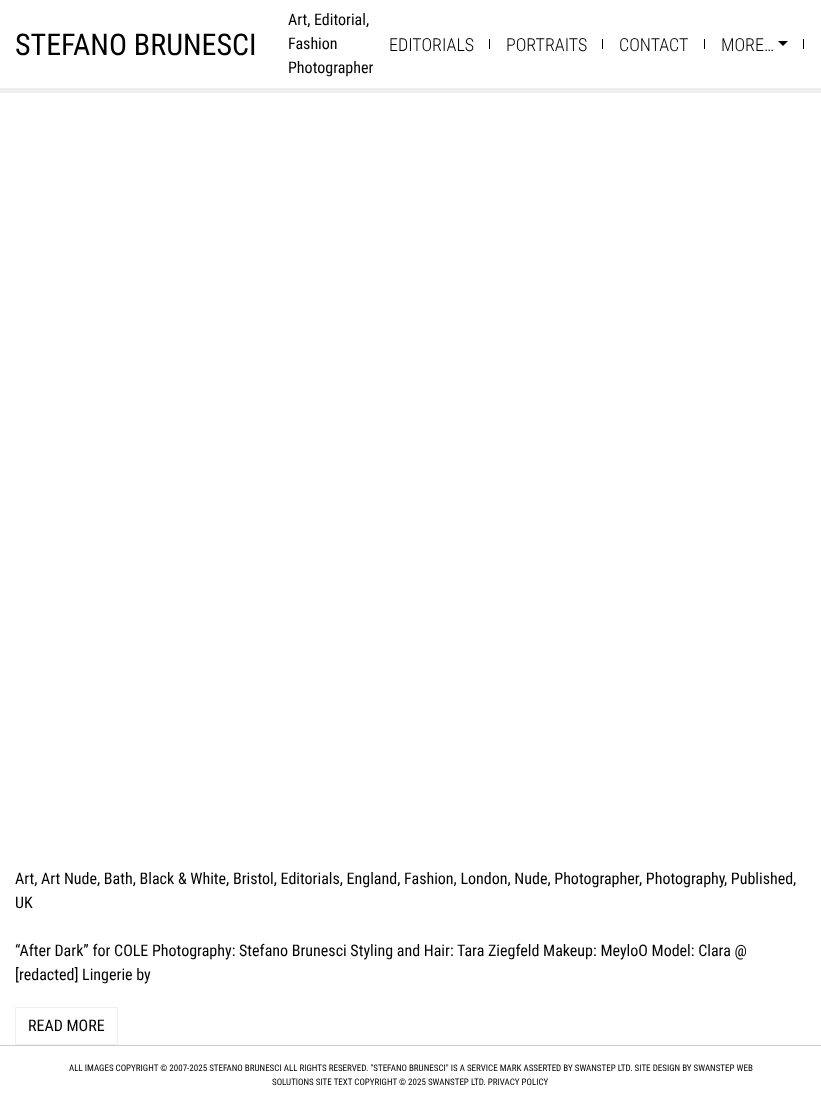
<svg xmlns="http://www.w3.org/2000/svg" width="821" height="1093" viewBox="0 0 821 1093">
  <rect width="100%" height="100%" fill="#fff"/>
  <path d="M0 88h821v5H0z" fill="#efefef"/>
  <path d="M489 39h1v10H489z" fill="#000"/>
  <path d="M602 39h1v10H602z" fill="#000"/>
  <path d="M704 39h1v10H704z" fill="#000"/>
  <path d="M778 41H788L783 46Z" fill="#000"/>
  <path d="M803 39h1v10H803z" fill="#000"/>
  <path d="M15.5 1007.5h102v37H15.5z" fill="none" stroke="#efefef"/>
  <path d="M0 1045h821v1H0z" fill="#ccc"/>
  <text x="15" y="55" font-family="Roboto Condensed" font-size="30" fill="#000">STEFANO BRUNESCI</text>
  <g font-family="Roboto Condensed" font-size="16" fill="#000">
    <text x="288" y="25">Art, Editorial,</text>
    <text x="288" y="49">Fashion</text>
    <text x="288" y="73">Photographer</text>
  </g>
  <g font-family="Roboto Condensed" font-size="18" font-weight="300" fill="#000">
    <text x="389" y="51">EDITORIALS</text>
    <text x="506" y="51">PORTRAITS</text>
    <text x="619" y="51">CONTACT</text>
    <text x="721" y="51">MORE…</text>
  </g>
  <g font-family="Roboto Condensed" font-size="16" fill="#000">
    <text x="15" y="884">Art, Art Nude, Bath, Black &amp; White, Bristol, Editorials, England, Fashion, London, Nude, Photographer</text>
    <text x="639" y="884">, Photography</text>
    <text x="724" y="884">, Published,</text>
    <text x="15" y="908">UK</text>
    <text x="15" y="956">“After Dark” for COLE Photography: Stefano Brunesci Styling and Hair: Tara Ziegfeld Makeup: MeyloO Model: Clara @</text>
    <text x="15" y="980">[redacted] Lingerie by</text>
    <text x="28" y="1031">READ MORE</text>
  </g>
  <g font-family="Roboto Condensed" font-size="9" fill="#000">
    <text x="69" y="1071">ALL IMAGES COPYRIGHT © 2007-2025 STEFANO BRUNESCI ALL RIGHTS RESERVED. "STEFANO BRUNESCI" IS A SERVICE MARK ASSERTED BY SWANSTEP LTD. SITE DESIGN BY SWANSTEP WEB</text>
    <text x="272" y="1085">SOLUTIONS SITE TEXT COPYRIGHT © 2025 SWANSTEP LTD. PRIVACY POLICY</text>
  </g>
</svg>
